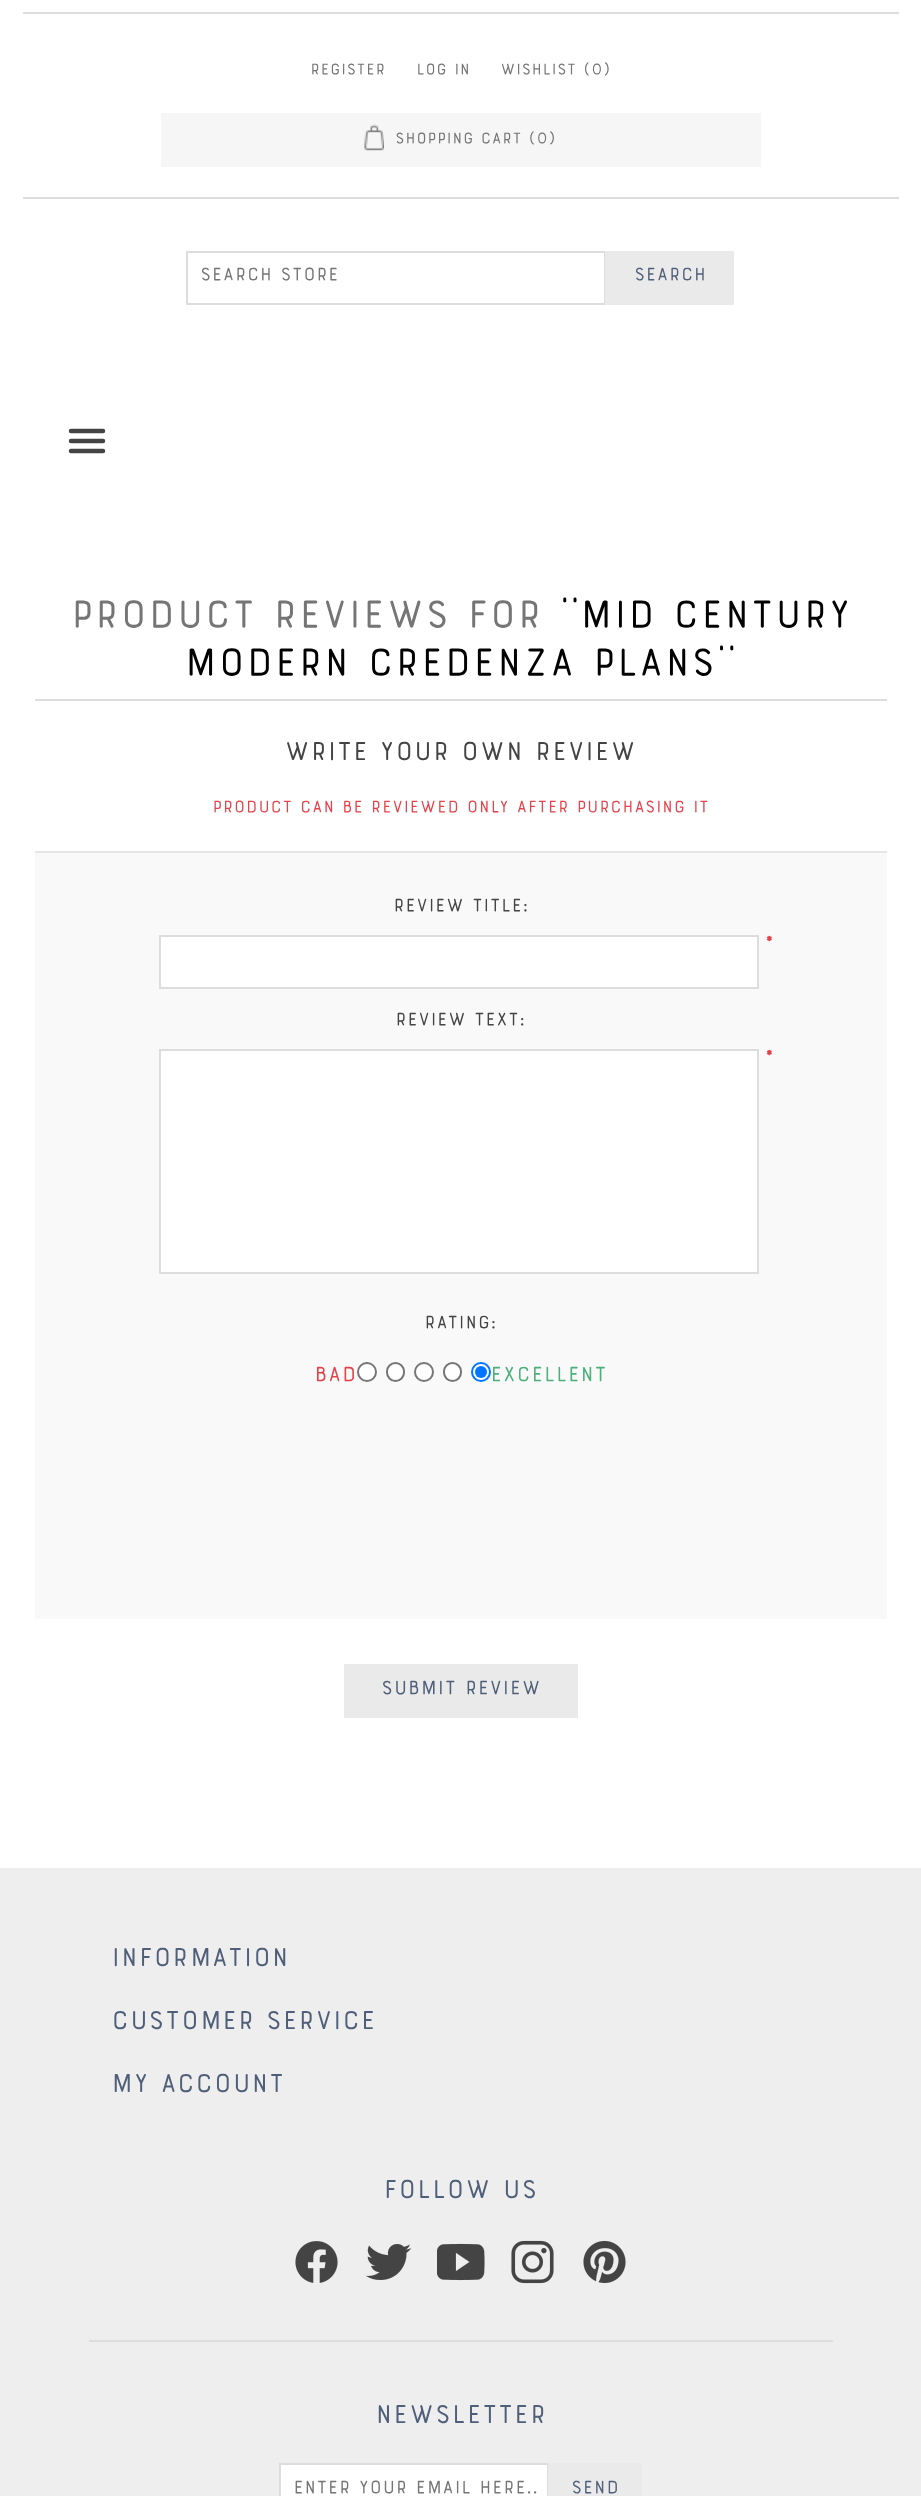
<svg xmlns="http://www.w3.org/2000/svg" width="921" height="2496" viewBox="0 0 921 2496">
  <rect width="100%" height="100%" fill="#fff"/>
  <path d="M23 197h876v2H23z" fill="#ddd"/>
  <path d="M23 12h876v2H23z" fill="#ddd"/>
  <path d="M161 113h600v54H161z" fill="#f6f6f6"/>
  <image x="364" y="124" width="20" height="27" href="img/1.png"/>
  <path d="M187 252h418v52H187z" fill="none" stroke="#ddd" stroke-width="2"/>
  <path d="M605 251h129v54H605z" fill="#eaeaea"/>
  <path d="M71 431H103M71 441H103M71 451H103" fill="none" stroke="#444" stroke-width="4.5" stroke-linecap="round"/>
  <path d="M35 699h852v2H35z" fill="#ddd"/>
  <path d="M35 853h852v766H35z" fill="#f9f9f9"/>
  <path d="M35 851h852v2H35z" fill="#e6e6e6"/>
  <path d="M160 936h598v52H160z" fill="#fff" stroke="#ddd" stroke-width="2"/>
  <path d="M160 1050h598v223H160z" fill="#fff" stroke="#ddd" stroke-width="2"/>
  <circle cx="367" cy="1372" r="9" fill="#fff" stroke="#767676" stroke-width="2"/>
  <rect x="387" y="1363" width="17" height="18" rx="8.5" fill="#fff" stroke="#767676" stroke-width="2"/>
  <circle cx="424" cy="1372" r="9" fill="#fff" stroke="#767676" stroke-width="2"/>
  <rect x="444" y="1363" width="17" height="18" rx="8.5" fill="#fff" stroke="#767676" stroke-width="2"/>
  <circle cx="481" cy="1372" r="9" fill="#fff" stroke="#0075ff" stroke-width="2"/>
  <circle cx="481" cy="1372" r="6" fill="#0075ff"/>
  <path d="M344 1664h234v54H344z" fill="#eaeaea"/>
  <path d="M0 1868h921v628H0z" fill="#eee"/>
  <path d="M89 2340h744v2H89z" fill="#ddd"/>
  <image x="295" y="2241" width="43" height="42" href="img/2.png"/>
  <image x="366" y="2244" width="45" height="37" href="img/3.png"/>
  <image x="437" y="2243" width="48" height="38" href="img/4.png"/>
  <image x="511" y="2240" width="43" height="44" href="img/5.png"/>
  <image x="583" y="2240" width="43" height="44" href="img/6.png"/>
  <path d="M280 2464h268v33H280z" fill="#fff" stroke="#ddd" stroke-width="2"/>
  <path d="M548 2463h94v33H548z" fill="#eaeaea"/>
  <g font-family="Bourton" font-size="18" font-weight="bold" fill="#757575">
    <text x="310" y="75">REGISTER</text>
    <text x="416" y="75">LOG IN</text>
    <text x="500" y="75">WISHLIST (0)</text>
    <text x="395" y="144">SHOPPING CART (0)</text>
  </g>
  <text x="200" y="281" font-family="Bourton" font-size="21" font-weight="bold" fill="#757575">Search store</text>
  <text x="634" y="281" font-family="Bourton" font-size="21" font-weight="bold" fill="#505f79">SEARCH</text>
  <text x="70" y="629" font-family="Bourton" font-size="45" font-weight="bold" fill="#757575">Product reviews for</text>
  <g font-family="Bourton" font-size="45" font-weight="bold" fill="#000">
    <text x="559" y="629">''Mid Century</text>
    <text x="184" y="677">Modern Credenza Plans''</text>
  </g>
  <text x="284" y="761" font-family="Bourton" font-size="30" font-weight="bold" fill="#444">Write your own review</text>
  <text x="212" y="813" font-family="Bourton" font-size="19.5" font-weight="bold" fill="#e4434b">Product can be reviewed only after purchasing it</text>
  <text x="393" y="912" font-family="Bourton" font-size="21" font-weight="bold" fill="#444">Review title:</text>
  <text x="764" y="957" font-family="Bourton" font-size="30" font-weight="bold" fill="#e4434b">*</text>
  <text x="395" y="1026" font-family="Bourton" font-size="21" font-weight="bold" fill="#444">Review text:</text>
  <text x="764" y="1071" font-family="Bourton" font-size="30" font-weight="bold" fill="#e4434b">*</text>
  <text x="424" y="1329" font-family="Bourton" font-size="21" font-weight="bold" fill="#444">Rating:</text>
  <text x="314" y="1382" font-family="Bourton" font-size="24" font-weight="bold" fill="#e4434b">Bad</text>
  <text x="490" y="1382" font-family="Bourton" font-size="24" font-weight="bold" fill="#4cb17c">Excellent</text>
  <text x="381" y="1695" font-family="Bourton" font-size="22.5" font-weight="bold" fill="#505f79">SUBMIT REVIEW</text>
  <g font-family="Bourton" font-size="30" font-weight="bold" fill="#505f79">
    <text x="111" y="1967">Information</text>
    <text x="111" y="2030">Customer service</text>
    <text x="111" y="2093">My account</text>
    <text x="383" y="2199">Follow us</text>
    <text x="375" y="2424">Newsletter</text>
  </g>
  <text x="293" y="2494" font-family="Bourton" font-size="21" font-weight="bold" fill="#757575">Enter your email here..</text>
  <text x="571" y="2494" font-family="Bourton" font-size="21" font-weight="bold" fill="#505f79">SEND</text>
</svg>
